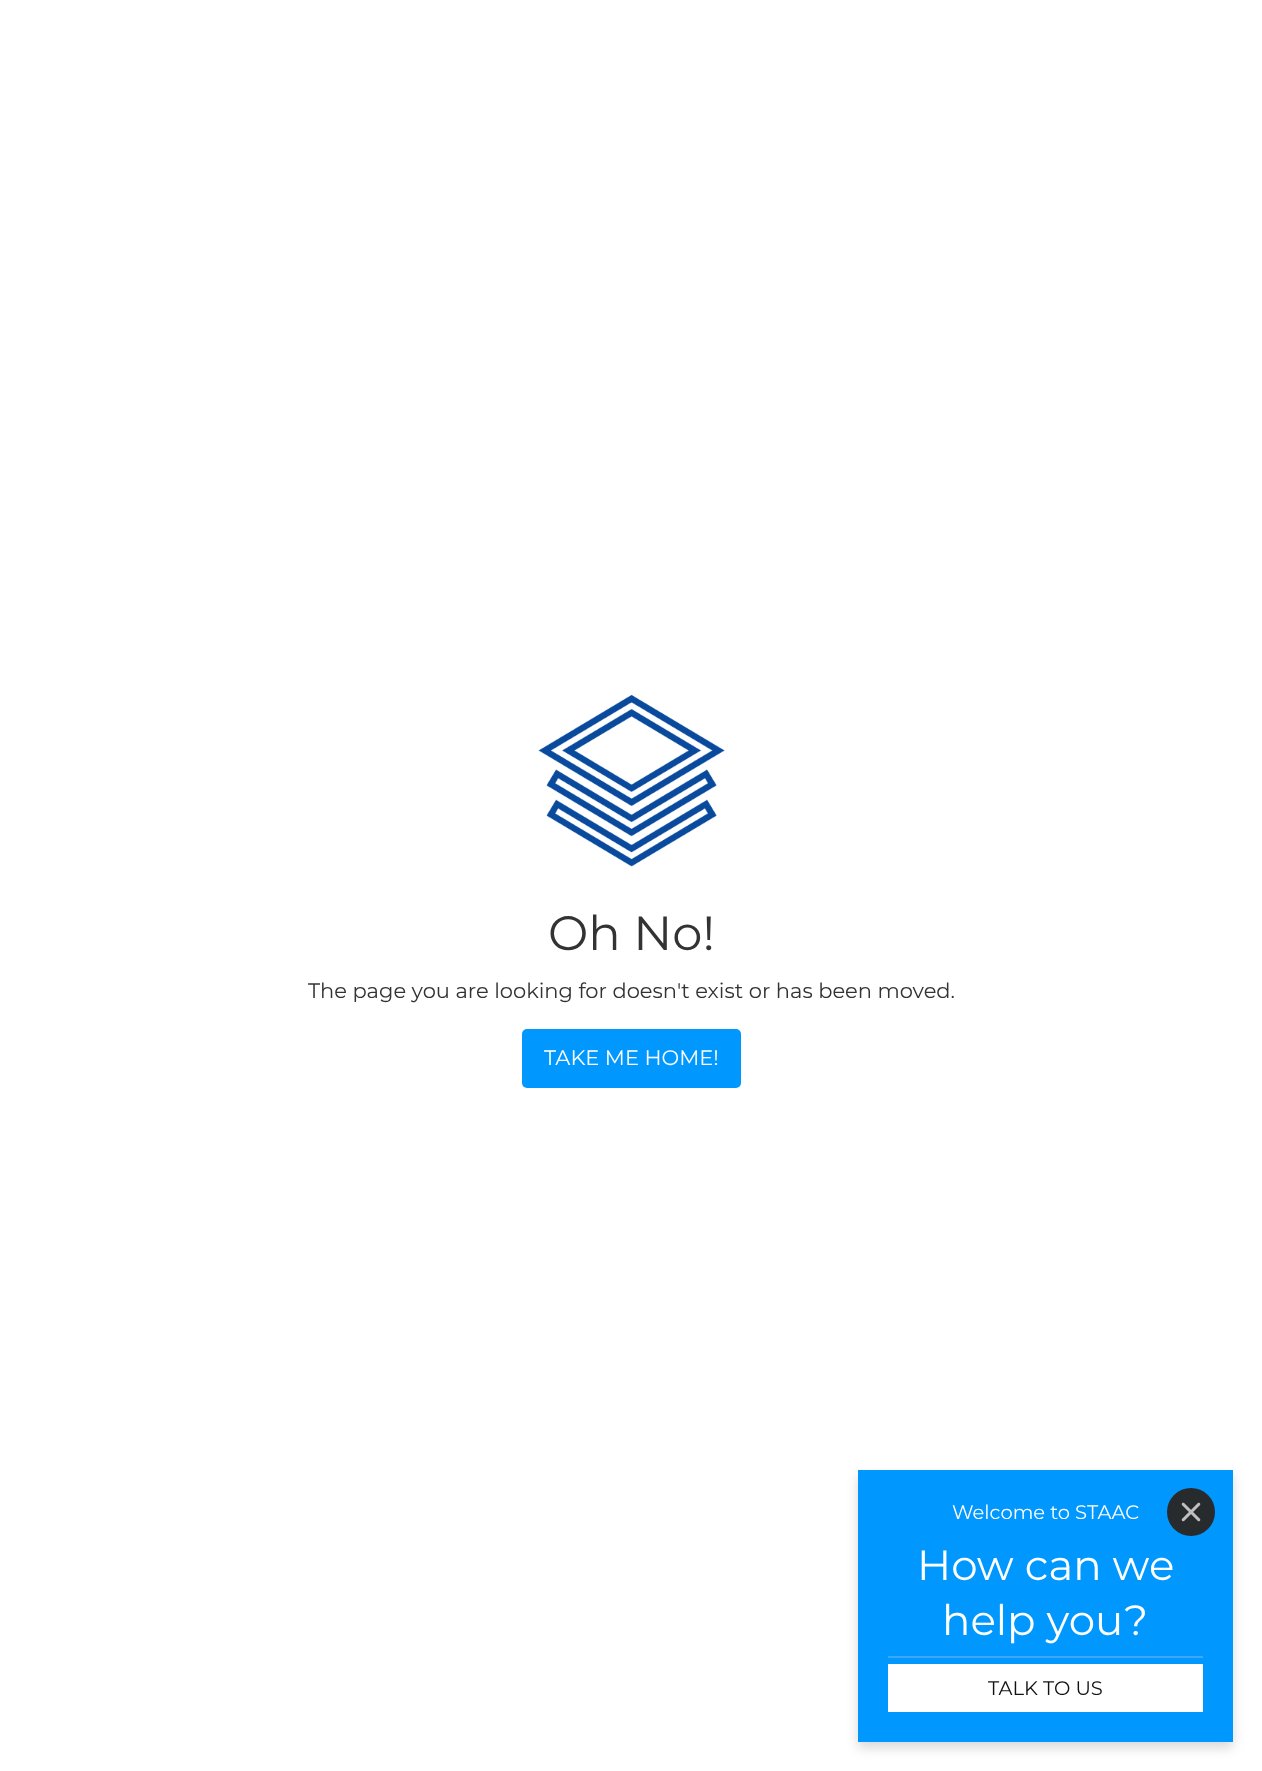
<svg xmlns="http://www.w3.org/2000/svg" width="1262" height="1771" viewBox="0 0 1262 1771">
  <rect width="100%" height="100%" fill="#fff"/>
  <image x="538" y="694" width="187" height="173" href="img/1.png"/>
  <rect x="522" y="1029" width="219" height="59" rx="5" fill="#0098ff"/>
  <path d="M858 1476h375v272H858z" fill="#00000026" filter="blur(6px)"/>
  <path d="M858 1470h375v272H858z" fill="#0098ff"/>
  <path d="M888 1656h315v2H888z" fill="#3ea9f1"/>
  <path d="M888 1664h315v48H888z" fill="#fff"/>
  <circle cx="1191" cy="1512" r="24" fill="#282b2d"/>
  <image x="1181" y="1502" width="20" height="20" href="img/2.png"/>
  <text x="548" y="950" font-family="Montserrat" font-size="48" fill="#333">Oh No!</text>
  <text x="308" y="998" font-family="Montserrat" font-size="21" fill="#333">The page you are looking for doesn't exist or has been moved.</text>
  <text x="544" y="1065" font-family="Montserrat" font-size="21" fill="#fff">TAKE ME HOME!</text>
  <text x="952" y="1519" font-family="Montserrat" font-size="19.5" fill="#fff">Welcome to STAAC</text>
  <g font-family="Montserrat" font-size="42" fill="#fff">
    <text x="917" y="1580">How can we</text>
    <text x="942" y="1635">help you?</text>
  </g>
  <text x="988" y="1695" font-family="Montserrat" font-size="19.5" fill="#111">TALK TO US</text>
</svg>
